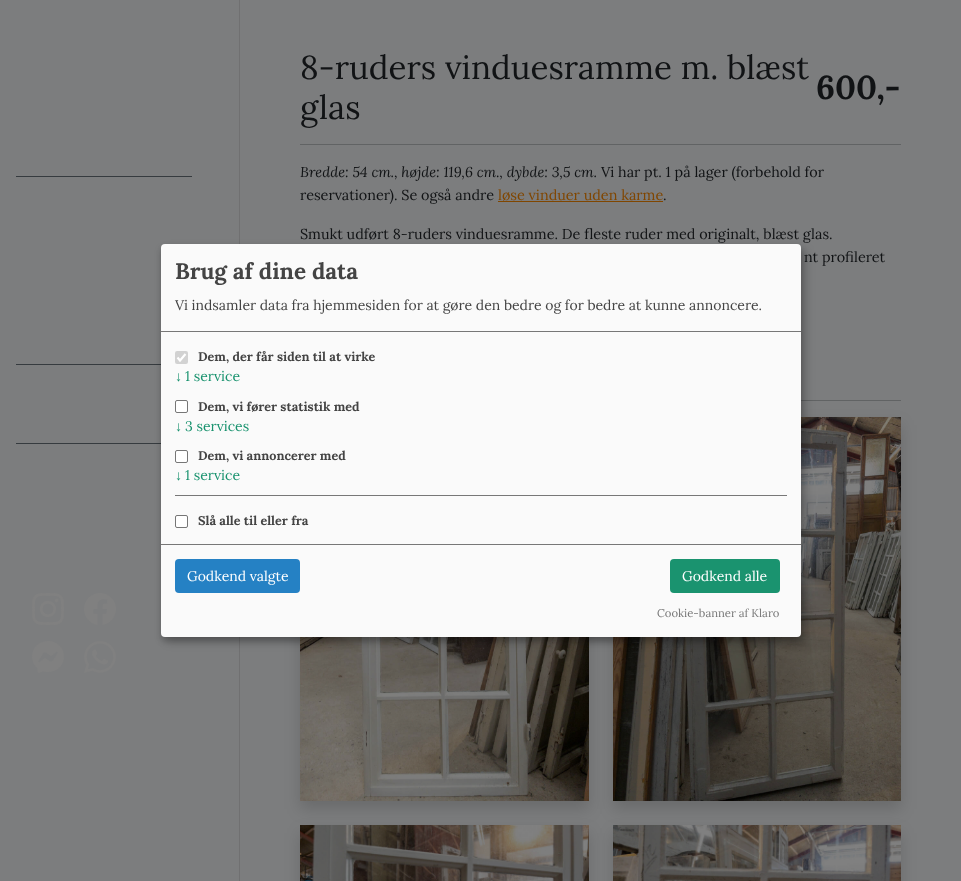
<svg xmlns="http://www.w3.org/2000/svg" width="961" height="881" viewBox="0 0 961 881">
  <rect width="100%" height="100%" fill="#7c7d7e"/>
  <path d="M239 0h1v881H239z" fill="#707071"/>
  <path d="M16 176h176v1H16z" fill="#363b3f"/>
  <path d="M16 364h145v1H16z" fill="#363b3f"/>
  <path d="M16 443h145v1H16z" fill="#363b3f"/>
  <image x="32" y="593" width="32" height="32" href="img/1.png"/>
  <image x="84" y="593" width="32" height="32" href="img/2.png"/>
  <image x="32" y="641" width="32" height="32" href="img/3.png"/>
  <image x="84" y="641" width="32" height="32" href="img/4.png"/>
  <path d="M300 144h601v1H300z" fill="#616364"/>
  <path d="M498 201h165v1H498z" fill="#804600"/>
  <path d="M300 425h289v384H300z" fill="#00000026" filter="blur(8px)"/>
  <image x="300" y="637" width="289" height="164" href="img/5.png"/>
  <path d="M613 425h288v384H613z" fill="#00000026" filter="blur(8px)"/>
  <image x="613" y="417" width="288" height="384" href="img/6.png"/>
  <path d="M300 833h289v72H300z" fill="#00000026" filter="blur(8px)"/>
  <image x="300" y="825" width="289" height="56" href="img/7.png"/>
  <path d="M613 833h288v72H613z" fill="#00000026" filter="blur(8px)"/>
  <image x="613" y="825" width="288" height="56" href="img/8.png"/>
  <path d="M801 400h100v1H801z" fill="#616364"/>
  <rect x="166" y="249" width="640" height="393" rx="4" fill="#00000030" filter="blur(5px)"/>
  <rect x="161" y="248" width="640" height="393" rx="4" fill="#00000033" filter="blur(3px)"/>
  <rect x="161" y="244" width="640" height="393" rx="4" fill="#fafafa"/>
  <path d="M161 331h640v1H161z" fill="#777"/>
  <rect x="175" y="351" width="13" height="13" rx="2" fill="#d2d2d2"/>
  <path d="M177.5 357.5L180 360.5L185.5 354" fill="none" stroke="#fff" stroke-width="2.1"/>
  <rect x="175.5" y="400.5" width="12" height="12" rx="1.5" fill="#fff" stroke="#767676"/>
  <rect x="175.5" y="450.5" width="12" height="12" rx="1.5" fill="#fff" stroke="#767676"/>
  <path d="M175 495h612v1H175z" fill="#777"/>
  <rect x="175.5" y="515.5" width="12" height="12" rx="1.5" fill="#fff" stroke="#767676"/>
  <path d="M161 544h640v1H161z" fill="#777"/>
  <rect x="175" y="559" width="125" height="34" rx="4" fill="#2581c4"/>
  <rect x="670" y="559" width="110" height="34" rx="4" fill="#1a936f"/>
  <g font-family="Lora" font-size="33.1" fill="#111315">
    <text x="300" y="79">8-ruders vinduesramme m. blæst</text>
    <text x="300" y="119">glas</text>
  </g>
  <text x="816" y="99" font-family="Lora" font-size="33.1" font-weight="bold" fill="#111315">600,-</text>
  <text x="300" y="177" font-family="Lora" font-size="14.4" font-style="italic" fill="#111315">Bredde: 54 cm., højde: 119,6 cm., dybde: 3,5 cm.</text>
  <g font-family="Lora" font-size="14.4" fill="#111315">
    <text x="601" y="177">Vi har pt. 1 på lager (forbehold for</text>
    <text x="300" y="200">reservationer). Se også andre</text>
  </g>
  <text x="498" y="200" font-family="Lora" font-size="14.4" fill="#804600">løse vinduer uden karme</text>
  <g font-family="Lora" font-size="14.4" fill="#111315">
    <text x="663" y="200">.</text>
    <text x="300" y="239">Smukt udført 8-ruders vinduesramme. De fleste ruder med originalt, blæst glas.</text>
    <text x="804" y="262">nt profileret</text>
  </g>
  <text x="175" y="279" font-family="Lora" font-size="22.5" font-weight="bold" fill="#444">Brug af dine data</text>
  <text x="175" y="310" font-family="Lora" font-size="14" fill="#444">Vi indsamler data fra hjemmesiden for at gøre den bedre og for bedre at kunne annoncere.</text>
  <text x="198" y="361" font-family="Lora" font-size="12.6" font-weight="bold" fill="#444">Dem, der får siden til at virke</text>
  <text x="175" y="381" font-family="Liberation Serif" font-size="14" fill="#1a936f">↓</text>
  <text x="185" y="381" font-family="Lora" font-size="14" fill="#1a936f">1 service</text>
  <text x="198" y="411" font-family="Lora" font-size="12.6" font-weight="bold" fill="#444">Dem, vi fører statistik med</text>
  <text x="175" y="431" font-family="Liberation Serif" font-size="14" fill="#1a936f">↓</text>
  <text x="185" y="431" font-family="Lora" font-size="14" fill="#1a936f">3 services</text>
  <text x="198" y="460" font-family="Lora" font-size="12.6" font-weight="bold" fill="#444">Dem, vi annoncerer med</text>
  <text x="175" y="480" font-family="Liberation Serif" font-size="14" fill="#1a936f">↓</text>
  <text x="185" y="480" font-family="Lora" font-size="14" fill="#1a936f">1 service</text>
  <text x="198" y="525" font-family="Lora" font-size="12.6" font-weight="bold" fill="#444">Slå alle til eller fra</text>
  <g font-family="Lora" font-size="14" fill="#fff">
    <text x="187" y="581">Godkend valgte</text>
    <text x="682" y="581">Godkend alle</text>
  </g>
  <text x="657" y="617" font-family="Lora" font-size="11.25" fill="#777">Cookie-banner af Klaro</text>
</svg>
